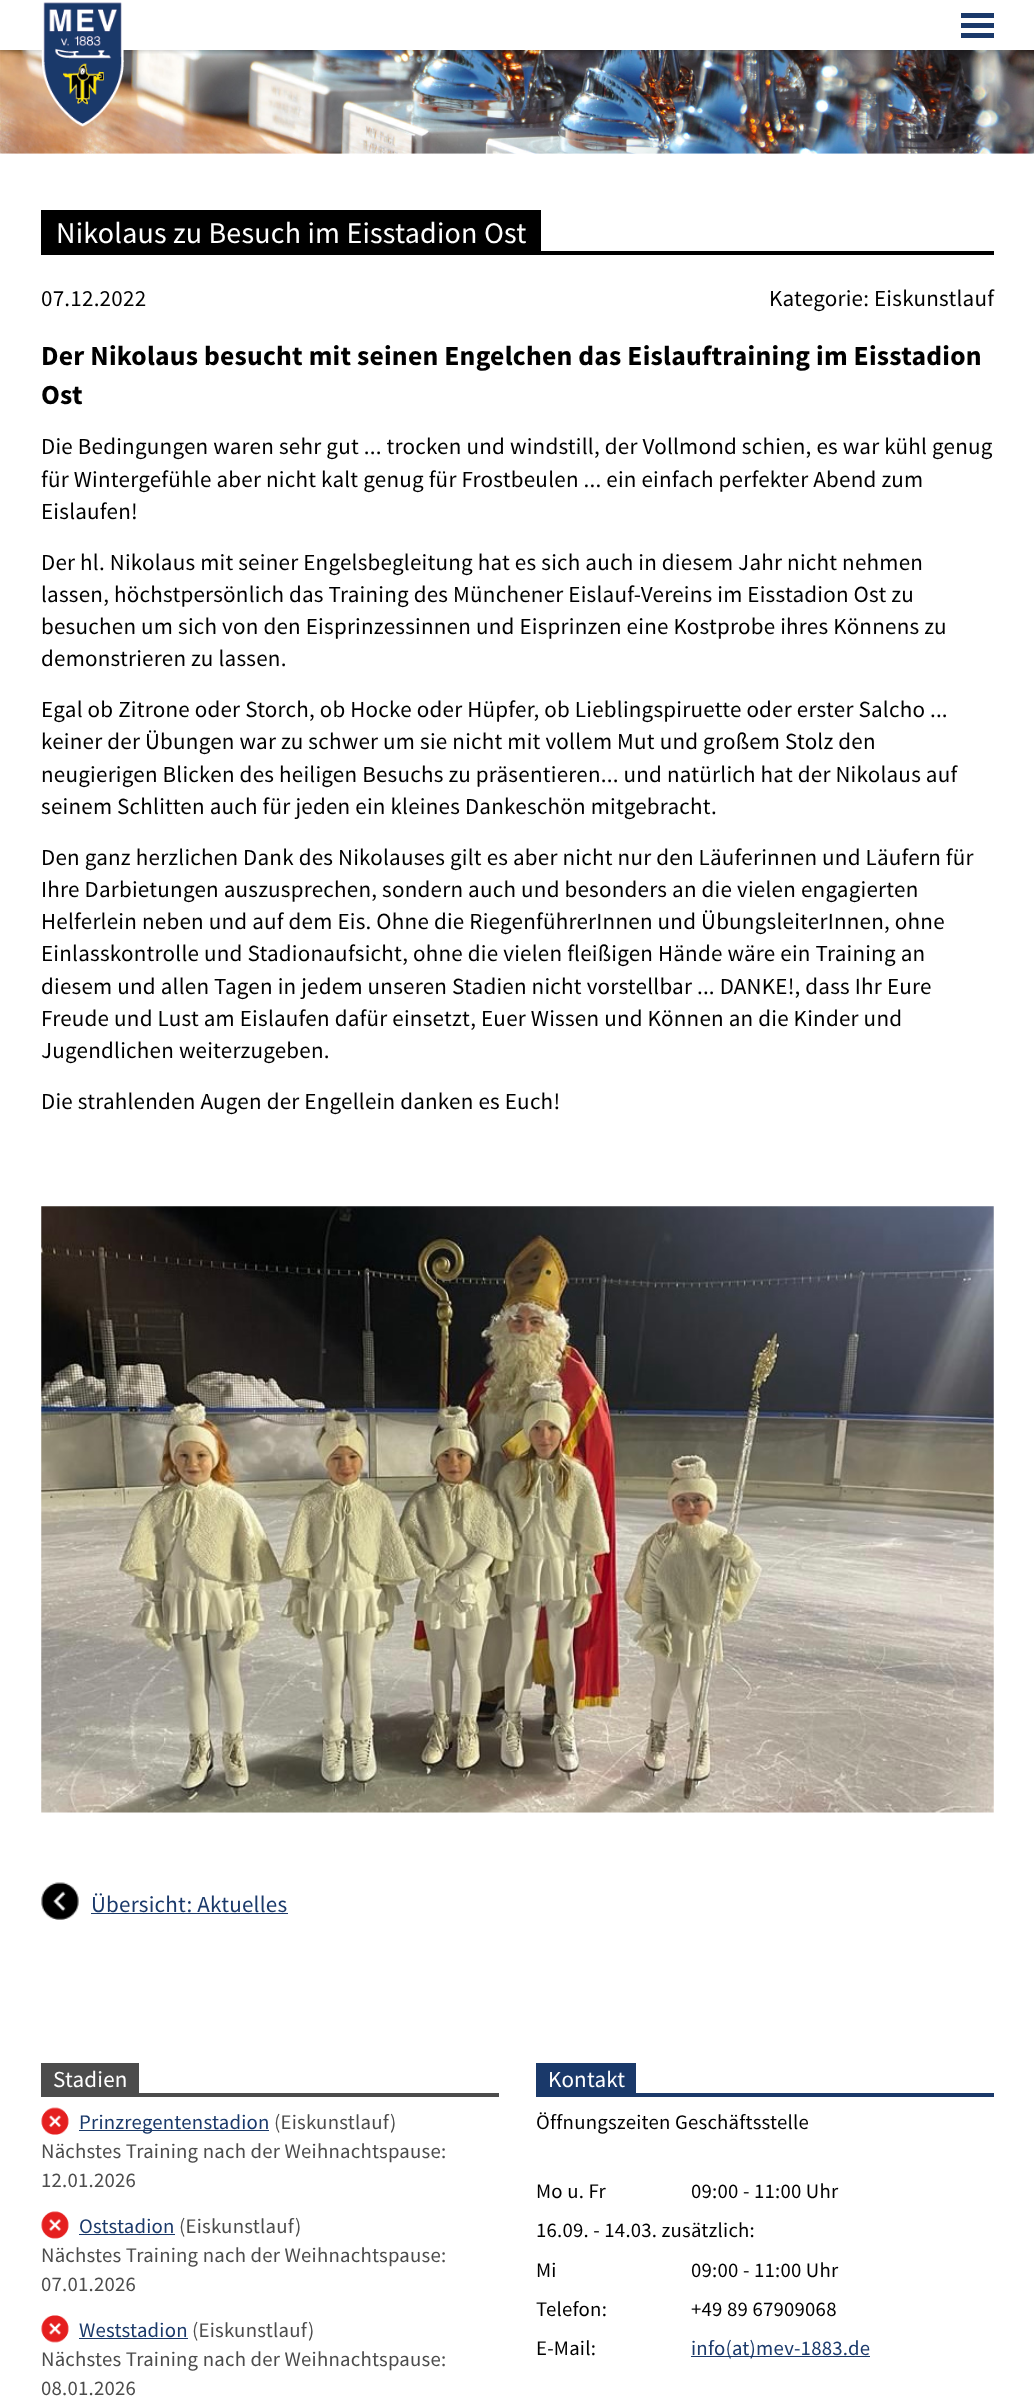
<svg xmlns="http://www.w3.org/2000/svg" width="1034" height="2405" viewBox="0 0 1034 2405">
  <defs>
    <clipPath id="clip1"><path d="M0 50h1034v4H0z"/></clipPath>
  </defs>
  <rect width="100%" height="100%" fill="#fff"/>
  <image x="0" y="50" width="1034" height="104" href="img/2.png"/>
  <g clip-path="url(#clip1)">
    <path d="M1 1h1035v50H1z" fill="#00000033" filter="blur(2px)"/>
  </g>
  <image x="41" y="2" width="83" height="125" href="img/1.png"/>
  <path d="M961 13h33v5H961z" fill="#1a396a"/>
  <path d="M961 23h33v5H961z" fill="#1a396a"/>
  <path d="M961 33h33v5H961z" fill="#1a396a"/>
  <path d="M41 251h953v4H41z" fill="#000"/>
  <path d="M41 210h500v41H41z" fill="#000"/>
  <image x="41" y="1206" width="953" height="607" href="img/3.png"/>
  <image x="41" y="1882" width="38" height="38" href="img/4.png"/>
  <path d="M91 1913h197v1H91z" fill="#1a396a"/>
  <path d="M41 2093h458v4H41z" fill="#4c4c4c"/>
  <path d="M41 2063h98v30H41z" fill="#4c4c4c"/>
  <image x="41" y="2107" width="28" height="28" href="img/5.png"/>
  <path d="M79 2130h190v1H79z" fill="#1a396a"/>
  <image x="41" y="2211" width="28" height="28" href="img/6.png"/>
  <path d="M79 2234h96v1H79z" fill="#1a396a"/>
  <image x="41" y="2315" width="28" height="28" href="img/7.png"/>
  <path d="M79 2338h109v1H79z" fill="#1a396a"/>
  <path d="M536 2093h458v4H536z" fill="#1a396a"/>
  <path d="M536 2063h100v30H536z" fill="#1a396a"/>
  <path d="M691 2356h179v1H691z" fill="#1a396a"/>
  <text x="56" y="243" font-family="Source Sans Pro" font-size="30" letter-spacing="0.23" fill="#fff">Nikolaus zu Besuch im Eisstadion Ost</text>
  <g font-family="Source Sans Pro" font-size="23.05" letter-spacing="0.23" fill="#000">
    <text x="41" y="306">07.12.2022</text>
    <text x="769" y="306">Kategorie: Eiskunstlauf</text>
  </g>
  <g font-family="Source Sans Pro" font-size="27.65" font-weight="bold" letter-spacing="0.23" fill="#000">
    <text x="41" y="365">Der Nikolaus besucht mit seinen Engelchen das Eislauftraining im Eisstadion</text>
    <text x="41" y="404">Ost</text>
  </g>
  <g font-family="Source Sans Pro" font-size="23.05" letter-spacing="0.23" fill="#000">
    <text x="41" y="454">Die Bedingungen waren sehr gut ... trocken und windstill, der Vollmond schien, es war kühl genug</text>
    <text x="41" y="487">für Wintergefühle aber nicht kalt genug für Frostbeulen ... ein einfach perfekter Abend zum</text>
    <text x="41" y="519">Eislaufen!</text>
    <text x="41" y="570">Der hl. Nikolaus mit seiner Engelsbegleitung hat es sich auch in diesem Jahr nicht nehmen</text>
    <text x="41" y="602">lassen, höchstpersönlich das Training des Münchener Eislauf-Vereins im Eisstadion Ost zu</text>
    <text x="41" y="634">besuchen um sich von den Eisprinzessinnen und Eisprinzen eine Kostprobe ihres Könnens zu</text>
    <text x="41" y="666">demonstrieren zu lassen.</text>
    <text x="41" y="717">Egal ob Zitrone oder Storch, ob Hocke oder Hüpfer, ob Lieblingspiruette oder erster Salcho ...</text>
    <text x="41" y="749">keiner der Übungen war zu schwer um sie nicht mit vollem Mut und großem Stolz den</text>
    <text x="41" y="782">neugierigen Blicken des heiligen Besuchs zu präsentieren... und natürlich hat der Nikolaus auf</text>
    <text x="41" y="814">seinem Schlitten auch für jeden ein kleines Dankeschön mitgebracht.</text>
    <text x="41" y="865">Den ganz herzlichen Dank des Nikolauses gilt es aber nicht nur den Läuferinnen und Läufern für</text>
    <text x="41" y="897">Ihre Darbietungen auszusprechen, sondern auch und besonders an die vielen engagierten</text>
    <text x="41" y="929">Helferlein neben und auf dem Eis. Ohne die RiegenführerInnen und ÜbungsleiterInnen, ohne</text>
    <text x="41" y="961">Einlasskontrolle und Stadionaufsicht, ohne die vielen fleißigen Hände wäre ein Training an</text>
    <text x="41" y="994">diesem und allen Tagen in jedem unseren Stadien nicht vorstellbar ... DANKE!, dass Ihr Eure</text>
    <text x="41" y="1026">Freude und Lust am Eislaufen dafür einsetzt, Euer Wissen und Können an die Kinder und</text>
    <text x="41" y="1058">Jugendlichen weiterzugeben.</text>
    <text x="41" y="1109">Die strahlenden Augen der Engellein danken es Euch!</text>
  </g>
  <text x="91" y="1912" font-family="Source Sans Pro" font-size="23.05" letter-spacing="0.23" fill="#1a396a">Übersicht: Aktuelles</text>
  <text x="53" y="2087" font-family="Source Sans Pro" font-size="23" letter-spacing="0.23" fill="#fff">Stadien</text>
  <text x="79" y="2129" font-family="Source Sans Pro" font-size="20.75" letter-spacing="0.23" fill="#1a396a">Prinzregentenstadion</text>
  <g font-family="Source Sans Pro" font-size="20.75" letter-spacing="0.23" fill="#4c4c4c">
    <text x="274" y="2129">(Eiskunstlauf)</text>
    <text x="41" y="2158">Nächstes Training nach der Weihnachtspause:</text>
    <text x="41" y="2187">12.01.2026</text>
  </g>
  <text x="79" y="2233" font-family="Source Sans Pro" font-size="20.75" letter-spacing="0.23" fill="#1a396a">Oststadion</text>
  <g font-family="Source Sans Pro" font-size="20.75" letter-spacing="0.23" fill="#4c4c4c">
    <text x="179" y="2233">(Eiskunstlauf)</text>
    <text x="41" y="2262">Nächstes Training nach der Weihnachtspause:</text>
    <text x="41" y="2291">07.01.2026</text>
  </g>
  <text x="79" y="2337" font-family="Source Sans Pro" font-size="20.75" letter-spacing="0.23" fill="#1a396a">Weststadion</text>
  <g font-family="Source Sans Pro" font-size="20.75" letter-spacing="0.23" fill="#4c4c4c">
    <text x="192" y="2337">(Eiskunstlauf)</text>
    <text x="41" y="2366">Nächstes Training nach der Weihnachtspause:</text>
    <text x="41" y="2395">08.01.2026</text>
  </g>
  <text x="548" y="2087" font-family="Source Sans Pro" font-size="23" letter-spacing="0.23" fill="#fff">Kontakt</text>
  <g font-family="Source Sans Pro" font-size="20.75" letter-spacing="0.23" fill="#000">
    <text x="536" y="2129">Öffnungszeiten Geschäftsstelle</text>
    <text x="536" y="2198">Mo u. Fr</text>
    <text x="691" y="2198">09:00 - 11:00 Uhr</text>
    <text x="536" y="2237">16.09. - 14.03. zusätzlich:</text>
    <text x="536" y="2277">Mi</text>
    <text x="691" y="2277">09:00 - 11:00 Uhr</text>
    <text x="536" y="2316">Telefon:</text>
    <text x="691" y="2316">+49 89 67909068</text>
    <text x="536" y="2355">E-Mail:</text>
  </g>
  <text x="691" y="2355" font-family="Source Sans Pro" font-size="20.75" letter-spacing="0.23" fill="#1a396a">info(at)mev-1883.de</text>
</svg>
